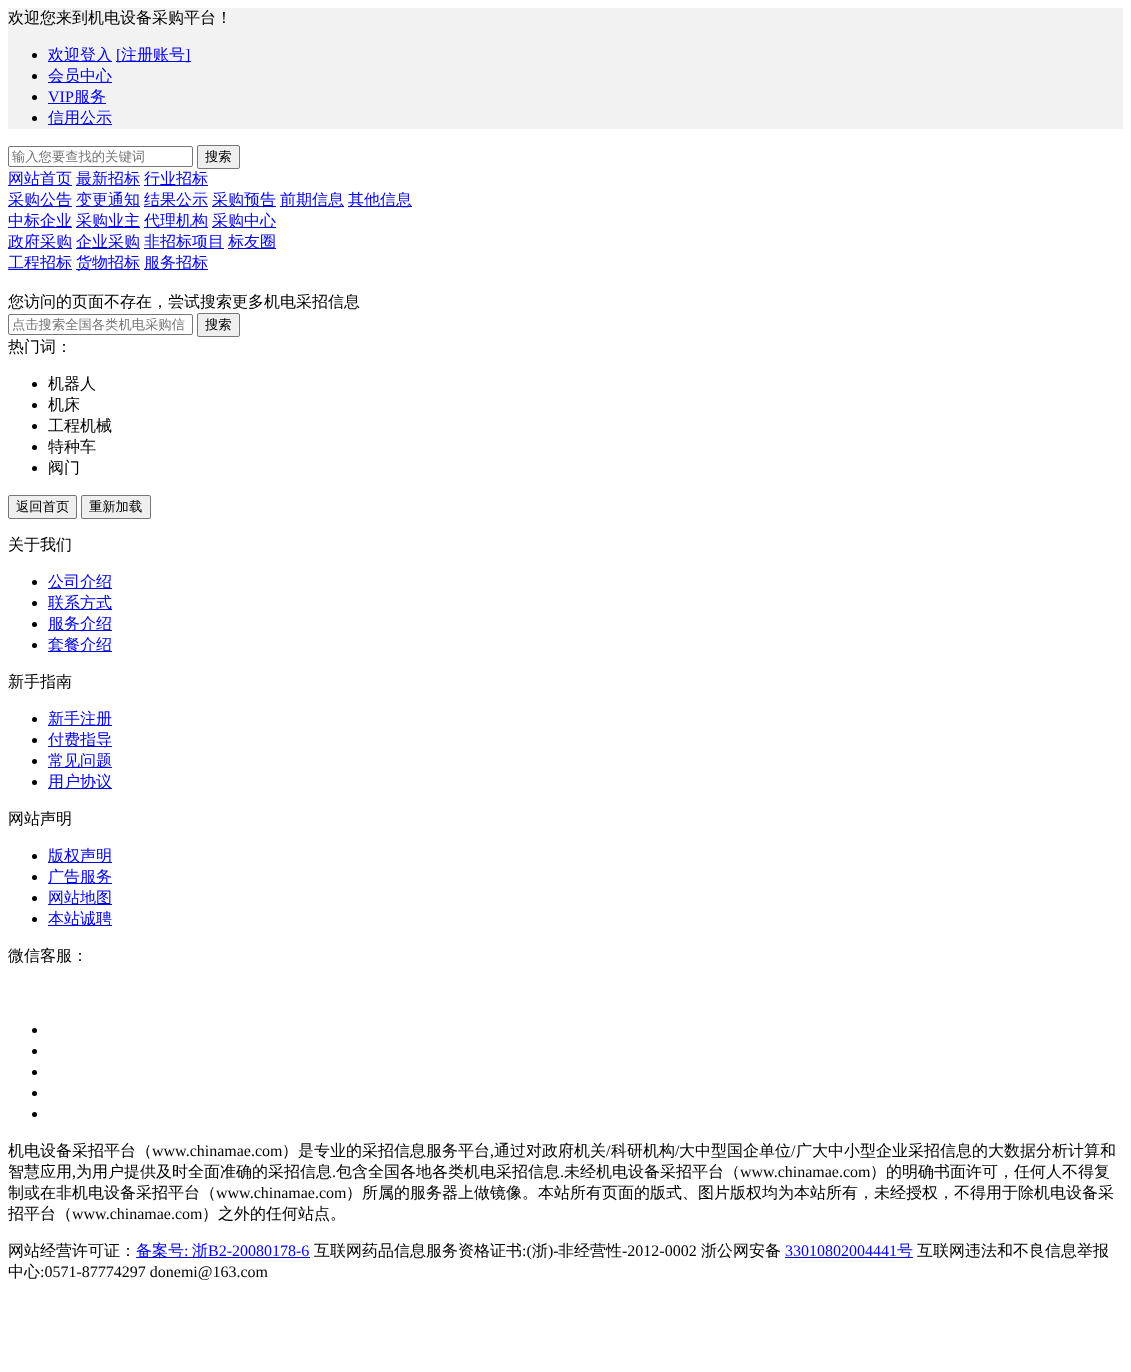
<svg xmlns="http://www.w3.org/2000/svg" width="1131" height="1372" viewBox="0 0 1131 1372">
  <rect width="100%" height="100%" fill="#fff"/>
  <path d="M8 8h1115v121H8z" fill="#f2f2f2"/>
  <circle cx="34.5" cy="55.5" r="2.5" fill="#000"/>
  <path d="M48 61h64v1H48z" fill="#00e"/>
  <path d="M116 61h75v1H116z" fill="#00e"/>
  <circle cx="34.5" cy="76.5" r="2.5" fill="#000"/>
  <path d="M48 82h64v1H48z" fill="#00e"/>
  <circle cx="34.5" cy="97.5" r="2.5" fill="#000"/>
  <path d="M48 103h58v1H48z" fill="#00e"/>
  <circle cx="34.5" cy="118.5" r="2.5" fill="#000"/>
  <path d="M48 124h64v1H48z" fill="#00e"/>
  <rect x="8.5" y="146.5" width="184" height="20" rx="1.5" fill="none" stroke="#767676"/>
  <rect x="197.5" y="145.5" width="42" height="23" rx="1.5" fill="#efefef" stroke="#767676"/>
  <path d="M8 185h64v1H8z" fill="#00e"/>
  <path d="M76 185h64v1H76z" fill="#00e"/>
  <path d="M144 185h64v1H144z" fill="#00e"/>
  <path d="M8 206h64v1H8z" fill="#00e"/>
  <path d="M76 206h64v1H76z" fill="#00e"/>
  <path d="M144 206h64v1H144z" fill="#00e"/>
  <path d="M212 206h64v1H212z" fill="#00e"/>
  <path d="M280 206h64v1H280z" fill="#00e"/>
  <path d="M348 206h64v1H348z" fill="#00e"/>
  <path d="M8 227h64v1H8z" fill="#00e"/>
  <path d="M76 227h64v1H76z" fill="#00e"/>
  <path d="M144 227h64v1H144z" fill="#00e"/>
  <path d="M212 227h64v1H212z" fill="#00e"/>
  <path d="M8 248h64v1H8z" fill="#00e"/>
  <path d="M76 248h64v1H76z" fill="#00e"/>
  <path d="M144 248h80v1H144z" fill="#00e"/>
  <path d="M228 248h48v1H228z" fill="#00e"/>
  <path d="M8 269h64v1H8z" fill="#00e"/>
  <path d="M76 269h64v1H76z" fill="#00e"/>
  <path d="M144 269h64v1H144z" fill="#00e"/>
  <rect x="8.5" y="314.5" width="184" height="20" rx="1.5" fill="none" stroke="#767676"/>
  <rect x="197.5" y="313.5" width="42" height="23" rx="1.5" fill="#efefef" stroke="#767676"/>
  <circle cx="34.5" cy="384.5" r="2.5" fill="#000"/>
  <circle cx="34.5" cy="405.5" r="2.5" fill="#000"/>
  <circle cx="34.5" cy="426.5" r="2.5" fill="#000"/>
  <circle cx="34.5" cy="447.5" r="2.5" fill="#000"/>
  <circle cx="34.5" cy="468.5" r="2.5" fill="#000"/>
  <rect x="8.5" y="495.5" width="68" height="23" rx="1.5" fill="#efefef" stroke="#767676"/>
  <rect x="81.5" y="495.5" width="69" height="23" rx="1.5" fill="#efefef" stroke="#767676"/>
  <circle cx="34.5" cy="582.5" r="2.5" fill="#000"/>
  <path d="M48 588h64v1H48z" fill="#00e"/>
  <circle cx="34.5" cy="603.5" r="2.5" fill="#000"/>
  <path d="M48 609h64v1H48z" fill="#00e"/>
  <circle cx="34.5" cy="624.5" r="2.5" fill="#000"/>
  <path d="M48 630h64v1H48z" fill="#00e"/>
  <circle cx="34.5" cy="645.5" r="2.5" fill="#000"/>
  <path d="M48 651h64v1H48z" fill="#00e"/>
  <circle cx="34.5" cy="719.5" r="2.5" fill="#000"/>
  <path d="M48 725h64v1H48z" fill="#00e"/>
  <circle cx="34.5" cy="740.5" r="2.5" fill="#000"/>
  <path d="M48 746h64v1H48z" fill="#00e"/>
  <circle cx="34.5" cy="761.5" r="2.5" fill="#000"/>
  <path d="M48 767h64v1H48z" fill="#00e"/>
  <circle cx="34.5" cy="782.5" r="2.5" fill="#000"/>
  <path d="M48 788h64v1H48z" fill="#00e"/>
  <circle cx="34.5" cy="856.5" r="2.5" fill="#000"/>
  <path d="M48 862h64v1H48z" fill="#00e"/>
  <circle cx="34.5" cy="877.5" r="2.5" fill="#000"/>
  <path d="M48 883h64v1H48z" fill="#00e"/>
  <circle cx="34.5" cy="898.5" r="2.5" fill="#000"/>
  <path d="M48 904h64v1H48z" fill="#00e"/>
  <circle cx="34.5" cy="919.5" r="2.5" fill="#000"/>
  <path d="M48 925h64v1H48z" fill="#00e"/>
  <circle cx="34.5" cy="1030.5" r="2.5" fill="#000"/>
  <circle cx="34.5" cy="1051.5" r="2.5" fill="#000"/>
  <circle cx="34.5" cy="1072.5" r="2.5" fill="#000"/>
  <circle cx="34.5" cy="1093.5" r="2.5" fill="#000"/>
  <circle cx="34.5" cy="1114.5" r="2.5" fill="#000"/>
  <path d="M136 1257h174v1H136z" fill="#00e"/>
  <path d="M785 1257h128v1H785z" fill="#00e"/>
  <text x="8" y="23" font-family="WenQuanYi Zen Hei" font-size="16" font-weight="500" fill="#000">欢迎您来到机电设备采购平台！</text>
  <text x="48" y="60" font-family="WenQuanYi Zen Hei" font-size="16" font-weight="500" fill="#00e">欢迎登入</text>
  <text x="116" y="60" font-family="Liberation Serif" font-size="16" fill="#00e">[</text>
  <text x="121" y="60" font-family="WenQuanYi Zen Hei" font-size="16" font-weight="500" fill="#00e">注册账号</text>
  <text x="185" y="60" font-family="Liberation Serif" font-size="16" fill="#00e">]</text>
  <text x="48" y="81" font-family="WenQuanYi Zen Hei" font-size="16" font-weight="500" fill="#00e">会员中心</text>
  <text x="48" y="102" font-family="Liberation Serif" font-size="16" fill="#00e">VIP</text>
  <g font-family="WenQuanYi Zen Hei" font-size="16" font-weight="500" fill="#00e">
    <text x="74" y="102">服务</text>
    <text x="48" y="123">信用公示</text>
  </g>
  <text x="12" y="161" font-family="WenQuanYi Zen Hei" font-size="13.3" font-weight="500" fill="#757575">输入您要查找的关键词</text>
  <text x="205" y="161" font-family="WenQuanYi Zen Hei" font-size="13.3" font-weight="500" fill="#000">搜索</text>
  <g font-family="WenQuanYi Zen Hei" font-size="16" font-weight="500" fill="#00e">
    <text x="8" y="184">网站首页</text>
    <text x="76" y="184">最新招标</text>
    <text x="144" y="184">行业招标</text>
    <text x="8" y="205">采购公告</text>
    <text x="76" y="205">变更通知</text>
    <text x="144" y="205">结果公示</text>
    <text x="212" y="205">采购预告</text>
    <text x="280" y="205">前期信息</text>
    <text x="348" y="205">其他信息</text>
    <text x="8" y="226">中标企业</text>
    <text x="76" y="226">采购业主</text>
    <text x="144" y="226">代理机构</text>
    <text x="212" y="226">采购中心</text>
    <text x="8" y="247">政府采购</text>
    <text x="76" y="247">企业采购</text>
    <text x="144" y="247">非招标项目</text>
    <text x="228" y="247">标友圈</text>
    <text x="8" y="268">工程招标</text>
    <text x="76" y="268">货物招标</text>
    <text x="144" y="268">服务招标</text>
  </g>
  <text x="8" y="307" font-family="WenQuanYi Zen Hei" font-size="16" font-weight="500" fill="#000">您访问的页面不存在，尝试搜索更多机电采招信息</text>
  <text x="12" y="329" font-family="WenQuanYi Zen Hei" font-size="13.3" font-weight="500" fill="#757575">点击搜索全国各类机电采购信</text>
  <text x="205" y="329" font-family="WenQuanYi Zen Hei" font-size="13.3" font-weight="500" fill="#000">搜索</text>
  <g font-family="WenQuanYi Zen Hei" font-size="16" font-weight="500" fill="#000">
    <text x="8" y="352">热门词：</text>
    <text x="48" y="389">机器人</text>
    <text x="48" y="410">机床</text>
    <text x="48" y="431">工程机械</text>
    <text x="48" y="452">特种车</text>
    <text x="48" y="473">阀门</text>
  </g>
  <g font-family="WenQuanYi Zen Hei" font-size="13.3" font-weight="500" fill="#000">
    <text x="16" y="511">返回首页</text>
    <text x="89" y="511">重新加载</text>
  </g>
  <text x="8" y="550" font-family="WenQuanYi Zen Hei" font-size="16" font-weight="500" fill="#000">关于我们</text>
  <g font-family="WenQuanYi Zen Hei" font-size="16" font-weight="500" fill="#00e">
    <text x="48" y="587">公司介绍</text>
    <text x="48" y="608">联系方式</text>
    <text x="48" y="629">服务介绍</text>
    <text x="48" y="650">套餐介绍</text>
  </g>
  <text x="8" y="687" font-family="WenQuanYi Zen Hei" font-size="16" font-weight="500" fill="#000">新手指南</text>
  <g font-family="WenQuanYi Zen Hei" font-size="16" font-weight="500" fill="#00e">
    <text x="48" y="724">新手注册</text>
    <text x="48" y="745">付费指导</text>
    <text x="48" y="766">常见问题</text>
    <text x="48" y="787">用户协议</text>
  </g>
  <text x="8" y="824" font-family="WenQuanYi Zen Hei" font-size="16" font-weight="500" fill="#000">网站声明</text>
  <g font-family="WenQuanYi Zen Hei" font-size="16" font-weight="500" fill="#00e">
    <text x="48" y="861">版权声明</text>
    <text x="48" y="882">广告服务</text>
    <text x="48" y="903">网站地图</text>
    <text x="48" y="924">本站诚聘</text>
  </g>
  <g font-family="WenQuanYi Zen Hei" font-size="16" font-weight="500" fill="#000">
    <text x="8" y="961">微信客服：</text>
    <text x="8" y="1156">机电设备采招平台（</text>
  </g>
  <text x="152" y="1156" font-family="Liberation Serif" font-size="16" fill="#000">www.chinamae.com</text>
  <text x="282" y="1156" font-family="WenQuanYi Zen Hei" font-size="16" font-weight="500" fill="#000">）是专业的采招信息服务平台</text>
  <text x="490" y="1156" font-family="Liberation Serif" font-size="16" fill="#000">,</text>
  <text x="494" y="1156" font-family="WenQuanYi Zen Hei" font-size="16" font-weight="500" fill="#000">通过对政府机关</text>
  <text x="606" y="1156" font-family="Liberation Serif" font-size="16" fill="#000">/</text>
  <text x="611" y="1156" font-family="WenQuanYi Zen Hei" font-size="16" font-weight="500" fill="#000">科研机构</text>
  <text x="675" y="1156" font-family="Liberation Serif" font-size="16" fill="#000">/</text>
  <text x="679" y="1156" font-family="WenQuanYi Zen Hei" font-size="16" font-weight="500" fill="#000">大中型国企单位</text>
  <text x="791" y="1156" font-family="Liberation Serif" font-size="16" fill="#000">/</text>
  <g font-family="WenQuanYi Zen Hei" font-size="16" font-weight="500" fill="#000">
    <text x="796" y="1156">广大中小型企业采招信息的大数据分析计算和</text>
    <text x="8" y="1177">智慧应用</text>
  </g>
  <text x="72" y="1177" font-family="Liberation Serif" font-size="16" fill="#000">,</text>
  <text x="76" y="1177" font-family="WenQuanYi Zen Hei" font-size="16" font-weight="500" fill="#000">为用户提供及时全面准确的采招信息</text>
  <text x="332" y="1177" font-family="Liberation Serif" font-size="16" fill="#000">.</text>
  <text x="336" y="1177" font-family="WenQuanYi Zen Hei" font-size="16" font-weight="500" fill="#000">包含全国各地各类机电采招信息</text>
  <text x="560" y="1177" font-family="Liberation Serif" font-size="16" fill="#000">.</text>
  <text x="564" y="1177" font-family="WenQuanYi Zen Hei" font-size="16" font-weight="500" fill="#000">未经机电设备采招平台（</text>
  <text x="740" y="1177" font-family="Liberation Serif" font-size="16" fill="#000">www.chinamae.com</text>
  <g font-family="WenQuanYi Zen Hei" font-size="16" font-weight="500" fill="#000">
    <text x="870" y="1177">）的明确书面许可，任何人不得复</text>
    <text x="8" y="1198">制或在非机电设备采招平台（</text>
  </g>
  <text x="216" y="1198" font-family="Liberation Serif" font-size="16" fill="#000">www.chinamae.com</text>
  <g font-family="WenQuanYi Zen Hei" font-size="16" font-weight="500" fill="#000">
    <text x="346" y="1198">）所属的服务器上做镜像。本站所有页面的版式、图片版权均为本站所有，未经授权，不得用于除机电设备采</text>
    <text x="8" y="1219">招平台（</text>
  </g>
  <text x="72" y="1219" font-family="Liberation Serif" font-size="16" fill="#000">www.chinamae.com</text>
  <g font-family="WenQuanYi Zen Hei" font-size="16" font-weight="500" fill="#000">
    <text x="202" y="1219">）之外的任何站点。</text>
    <text x="8" y="1256">网站经营许可证：</text>
  </g>
  <text x="136" y="1256" font-family="WenQuanYi Zen Hei" font-size="16" font-weight="500" fill="#00e">备案号</text>
  <text x="184" y="1256" font-family="Liberation Serif" font-size="16" fill="#00e">:</text>
  <text x="192" y="1256" font-family="WenQuanYi Zen Hei" font-size="16" font-weight="500" fill="#00e">浙</text>
  <text x="208" y="1256" font-family="Liberation Serif" font-size="16" fill="#00e">B2-20080178-6</text>
  <text x="314" y="1256" font-family="WenQuanYi Zen Hei" font-size="16" font-weight="500" fill="#000">互联网药品信息服务资格证书</text>
  <text x="522" y="1256" font-family="Liberation Serif" font-size="16" fill="#000">:(</text>
  <text x="532" y="1256" font-family="WenQuanYi Zen Hei" font-size="16" font-weight="500" fill="#000">浙</text>
  <text x="548" y="1256" font-family="Liberation Serif" font-size="16" fill="#000">)-</text>
  <text x="558" y="1256" font-family="WenQuanYi Zen Hei" font-size="16" font-weight="500" fill="#000">非经营性</text>
  <text x="622" y="1256" font-family="Liberation Serif" font-size="16" fill="#000">-2012-0002</text>
  <text x="701" y="1256" font-family="WenQuanYi Zen Hei" font-size="16" font-weight="500" fill="#000">浙公网安备</text>
  <text x="785" y="1256" font-family="Liberation Serif" font-size="16" fill="#00e">33010802004441</text>
  <text x="897" y="1256" font-family="WenQuanYi Zen Hei" font-size="16" font-weight="500" fill="#00e">号</text>
  <g font-family="WenQuanYi Zen Hei" font-size="16" font-weight="500" fill="#000">
    <text x="917" y="1256">互联网违法和不良信息举报</text>
    <text x="8" y="1277">中心</text>
  </g>
  <text x="40" y="1277" font-family="Liberation Serif" font-size="16" fill="#000">:0571-87774297 donemi@163.com</text>
</svg>
